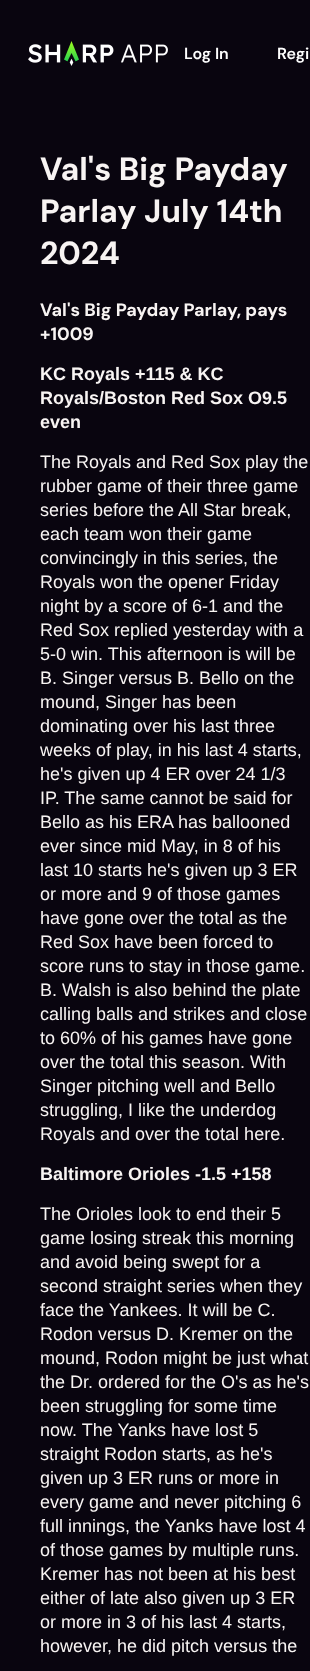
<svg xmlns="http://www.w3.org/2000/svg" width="310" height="1671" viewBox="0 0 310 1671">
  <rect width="100%" height="100%" fill="#09050f"/>
  <image x="28" y="41" width="140" height="25" href="img/1.png"/>
  <g font-family="DM Sans" font-size="16" font-weight="600" fill="#fff">
    <text x="184" y="59">Log In</text>
    <text x="277" y="59">Regi</text>
  </g>
  <g font-family="DM Sans" font-size="32" font-weight="bold" fill="#f8f4f3">
    <text x="40" y="180">Val's Big Payday</text>
    <text x="40" y="222">Parlay July 14th</text>
    <text x="40" y="264">2024</text>
  </g>
  <g font-family="DM Sans" font-size="18" font-weight="bold" fill="#f8f4f3">
    <text x="40" y="316">Val's Big Payday Parlay, pays</text>
    <text x="40" y="340">+1009</text>
  </g>
  <g font-family="Liberation Sans" font-size="18" font-weight="bold" fill="#f8f4f3">
    <text x="40" y="380">KC Royals +115 &amp; KC</text>
    <text x="40" y="404">Royals/Boston Red Sox O9.5</text>
    <text x="40" y="428">even</text>
  </g>
  <g font-family="Liberation Sans" font-size="18" fill="#f8f4f3">
    <text x="40" y="468">The Royals and Red Sox play the</text>
    <text x="40" y="492">rubber game of their three game</text>
    <text x="40" y="516">series before the All Star break,</text>
    <text x="40" y="540">each team won their game</text>
    <text x="40" y="564">convincingly in this series, the</text>
    <text x="40" y="588">Royals won the opener Friday</text>
    <text x="40" y="612">night by a score of 6-1 and the</text>
    <text x="40" y="636">Red Sox replied yesterday with a</text>
    <text x="40" y="660">5-0 win. This afternoon is will be</text>
    <text x="40" y="684">B. Singer versus B. Bello on the</text>
    <text x="40" y="708">mound, Singer has been</text>
    <text x="40" y="732">dominating over his last three</text>
    <text x="40" y="756">weeks of play, in his last 4 starts,</text>
    <text x="40" y="780">he's given up 4 ER over 24 1/3</text>
    <text x="40" y="804">IP. The same cannot be said for</text>
    <text x="40" y="828">Bello as his ERA has ballooned</text>
    <text x="40" y="852">ever since mid May, in 8 of his</text>
    <text x="40" y="876">last 10 starts he's given up 3 ER</text>
    <text x="40" y="900">or more and 9 of those games</text>
    <text x="40" y="924">have gone over the total as the</text>
    <text x="40" y="948">Red Sox have been forced to</text>
    <text x="40" y="972">score runs to stay in those game.</text>
    <text x="40" y="996">B. Walsh is also behind the plate</text>
    <text x="40" y="1020">calling balls and strikes and close</text>
    <text x="40" y="1044">to 60% of his games have gone</text>
    <text x="40" y="1068">over the total this season. With</text>
    <text x="40" y="1092">Singer pitching well and Bello</text>
    <text x="40" y="1116">struggling, I like the underdog</text>
    <text x="40" y="1140">Royals and over the total here.</text>
  </g>
  <text x="40" y="1180" font-family="Liberation Sans" font-size="18" font-weight="bold" fill="#f8f4f3">Baltimore Orioles -1.5 +158</text>
  <g font-family="Liberation Sans" font-size="18" fill="#f8f4f3">
    <text x="40" y="1220">The Orioles look to end their 5</text>
    <text x="40" y="1244">game losing streak this morning</text>
    <text x="40" y="1268">and avoid being swept for a</text>
    <text x="40" y="1292">second straight series when they</text>
    <text x="40" y="1316">face the Yankees. It will be C.</text>
    <text x="40" y="1340">Rodon versus D. Kremer on the</text>
    <text x="40" y="1364">mound, Rodon might be just what</text>
    <text x="40" y="1388">the Dr. ordered for the O's as he's</text>
    <text x="40" y="1412">been struggling for some time</text>
    <text x="40" y="1436">now. The Yanks have lost 5</text>
    <text x="40" y="1460">straight Rodon starts, as he's</text>
    <text x="40" y="1484">given up 3 ER runs or more in</text>
    <text x="40" y="1508">every game and never pitching 6</text>
    <text x="40" y="1532">full innings, the Yanks have lost 4</text>
    <text x="40" y="1556">of those games by multiple runs.</text>
    <text x="40" y="1580">Kremer has not been at his best</text>
    <text x="40" y="1604">either of late also given up 3 ER</text>
    <text x="40" y="1628">or more in 3 of his last 4 starts,</text>
    <text x="40" y="1652">however, he did pitch versus the</text>
  </g>
</svg>
